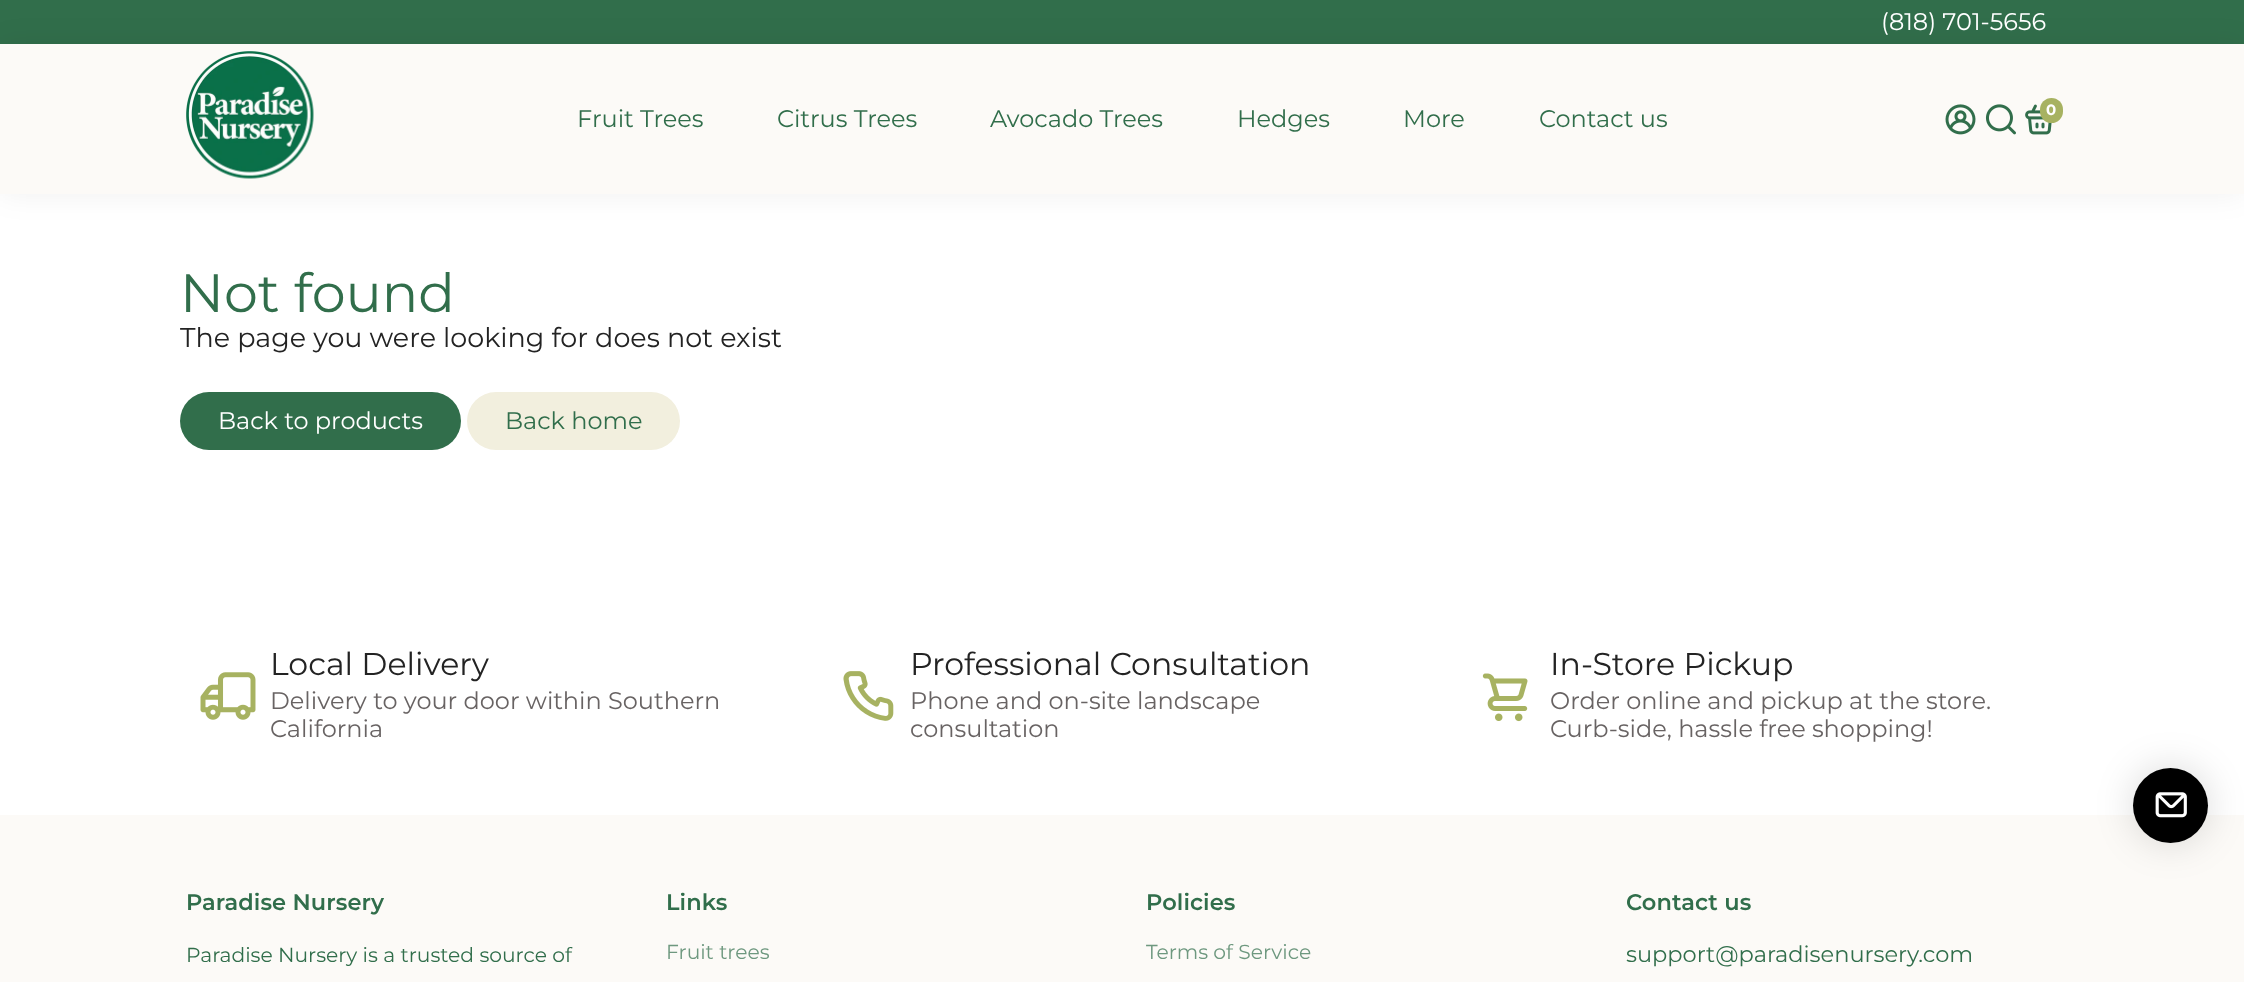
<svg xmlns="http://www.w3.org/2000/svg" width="2244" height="982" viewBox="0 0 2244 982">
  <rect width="100%" height="100%" fill="#fff"/>
  <path d="M0 0h2244v44H0z" fill="#316e4b"/>
  <path d="M0 44h2244v150H0z" fill="#0000000f" filter="blur(15px)"/>
  <path d="M0 44h2244v150H0z" fill="#fcfaf7"/>
  <image x="186" y="51" width="128" height="128" href="img/1.png"/>
  <image x="1945" y="104" width="31" height="31" href="img/2.png"/>
  <image x="1985" y="104" width="31" height="31" href="img/3.png"/>
  <image x="2025" y="104" width="27" height="31" href="img/4.png"/>
  <rect x="2040" y="98" width="23" height="25" rx="11.5" fill="#a7b261"/>
  <rect x="180" y="392" width="281" height="58" rx="29" fill="#316e4b"/>
  <rect x="467" y="392" width="213" height="58" rx="29" fill="#f2efde"/>
  <image x="200" y="672" width="56" height="48" href="img/5.png"/>
  <image x="843" y="671" width="51" height="50" href="img/6.png"/>
  <image x="1482" y="673" width="46" height="49" href="img/7.png"/>
  <path d="M0 815h2244v167H0z" fill="#fcfaf7"/>
  <rect x="2133" y="768" width="75" height="75" rx="37.5" fill="#00000026" filter="blur(19px)"/>
  <circle cx="2170.5" cy="805.5" r="37.5" fill="#000"/>
  <image x="2155" y="792" width="32" height="26" href="img/8.png"/>
  <text x="1881" y="30" font-family="Montserrat" font-size="24" fill="#fff">(818) 701-5656</text>
  <g font-family="Montserrat" font-size="24" fill="#316e4b">
    <text x="577" y="127">Fruit Trees</text>
    <text x="777" y="127">Citrus Trees</text>
    <text x="990" y="127">Avocado Trees</text>
    <text x="1237" y="127">Hedges</text>
    <text x="1403" y="127">More</text>
    <text x="1539" y="127">Contact us</text>
  </g>
  <text x="2046" y="115" font-family="Montserrat" font-size="15" font-weight="bold" fill="#fff">0</text>
  <text x="180" y="312" font-family="Montserrat" font-size="54" fill="#316e4b">Not found</text>
  <text x="180" y="347" font-family="Montserrat" font-size="27" fill="#232323">The page you were looking for does not exist</text>
  <text x="218" y="429" font-family="Montserrat" font-size="24" fill="#fff">Back to products</text>
  <text x="505" y="429" font-family="Montserrat" font-size="24" fill="#316e4b">Back home</text>
  <text x="270" y="675" font-family="Montserrat" font-size="31.6" fill="#232323">Local Delivery</text>
  <g font-family="Montserrat" font-size="24" fill="#686363">
    <text x="270" y="709">Delivery to your door within Southern</text>
    <text x="270" y="737">California</text>
  </g>
  <text x="910" y="675" font-family="Montserrat" font-size="31.6" fill="#232323">Professional Consultation</text>
  <g font-family="Montserrat" font-size="24" fill="#686363">
    <text x="910" y="709">Phone and on-site landscape</text>
    <text x="910" y="737">consultation</text>
  </g>
  <text x="1550" y="675" font-family="Montserrat" font-size="31.6" fill="#232323">In-Store Pickup</text>
  <g font-family="Montserrat" font-size="24" fill="#686363">
    <text x="1550" y="709">Order online and pickup at the store.</text>
    <text x="1550" y="737">Curb-side, hassle free shopping!</text>
  </g>
  <text x="186" y="910" font-family="Montserrat" font-size="22.5" font-weight="600" letter-spacing="0.1" fill="#316e4b">Paradise Nursery</text>
  <text x="186" y="962" font-family="Montserrat" font-size="20.25" fill="#316e4b">Paradise Nursery is a trusted source of</text>
  <text x="666" y="910" font-family="Montserrat" font-size="22.5" font-weight="600" letter-spacing="0.1" fill="#316e4b">Links</text>
  <text x="666" y="959" font-family="Montserrat" font-size="20.25" fill="#6e987f">Fruit trees</text>
  <text x="1146" y="910" font-family="Montserrat" font-size="22.5" font-weight="600" letter-spacing="0.1" fill="#316e4b">Policies</text>
  <text x="1146" y="959" font-family="Montserrat" font-size="20.25" fill="#6e987f">Terms of Service</text>
  <text x="1626" y="910" font-family="Montserrat" font-size="22.5" font-weight="600" letter-spacing="0.1" fill="#316e4b">Contact us</text>
  <text x="1626" y="962" font-family="Montserrat" font-size="22.5" fill="#316e4b">support@paradisenursery.com</text>
</svg>
